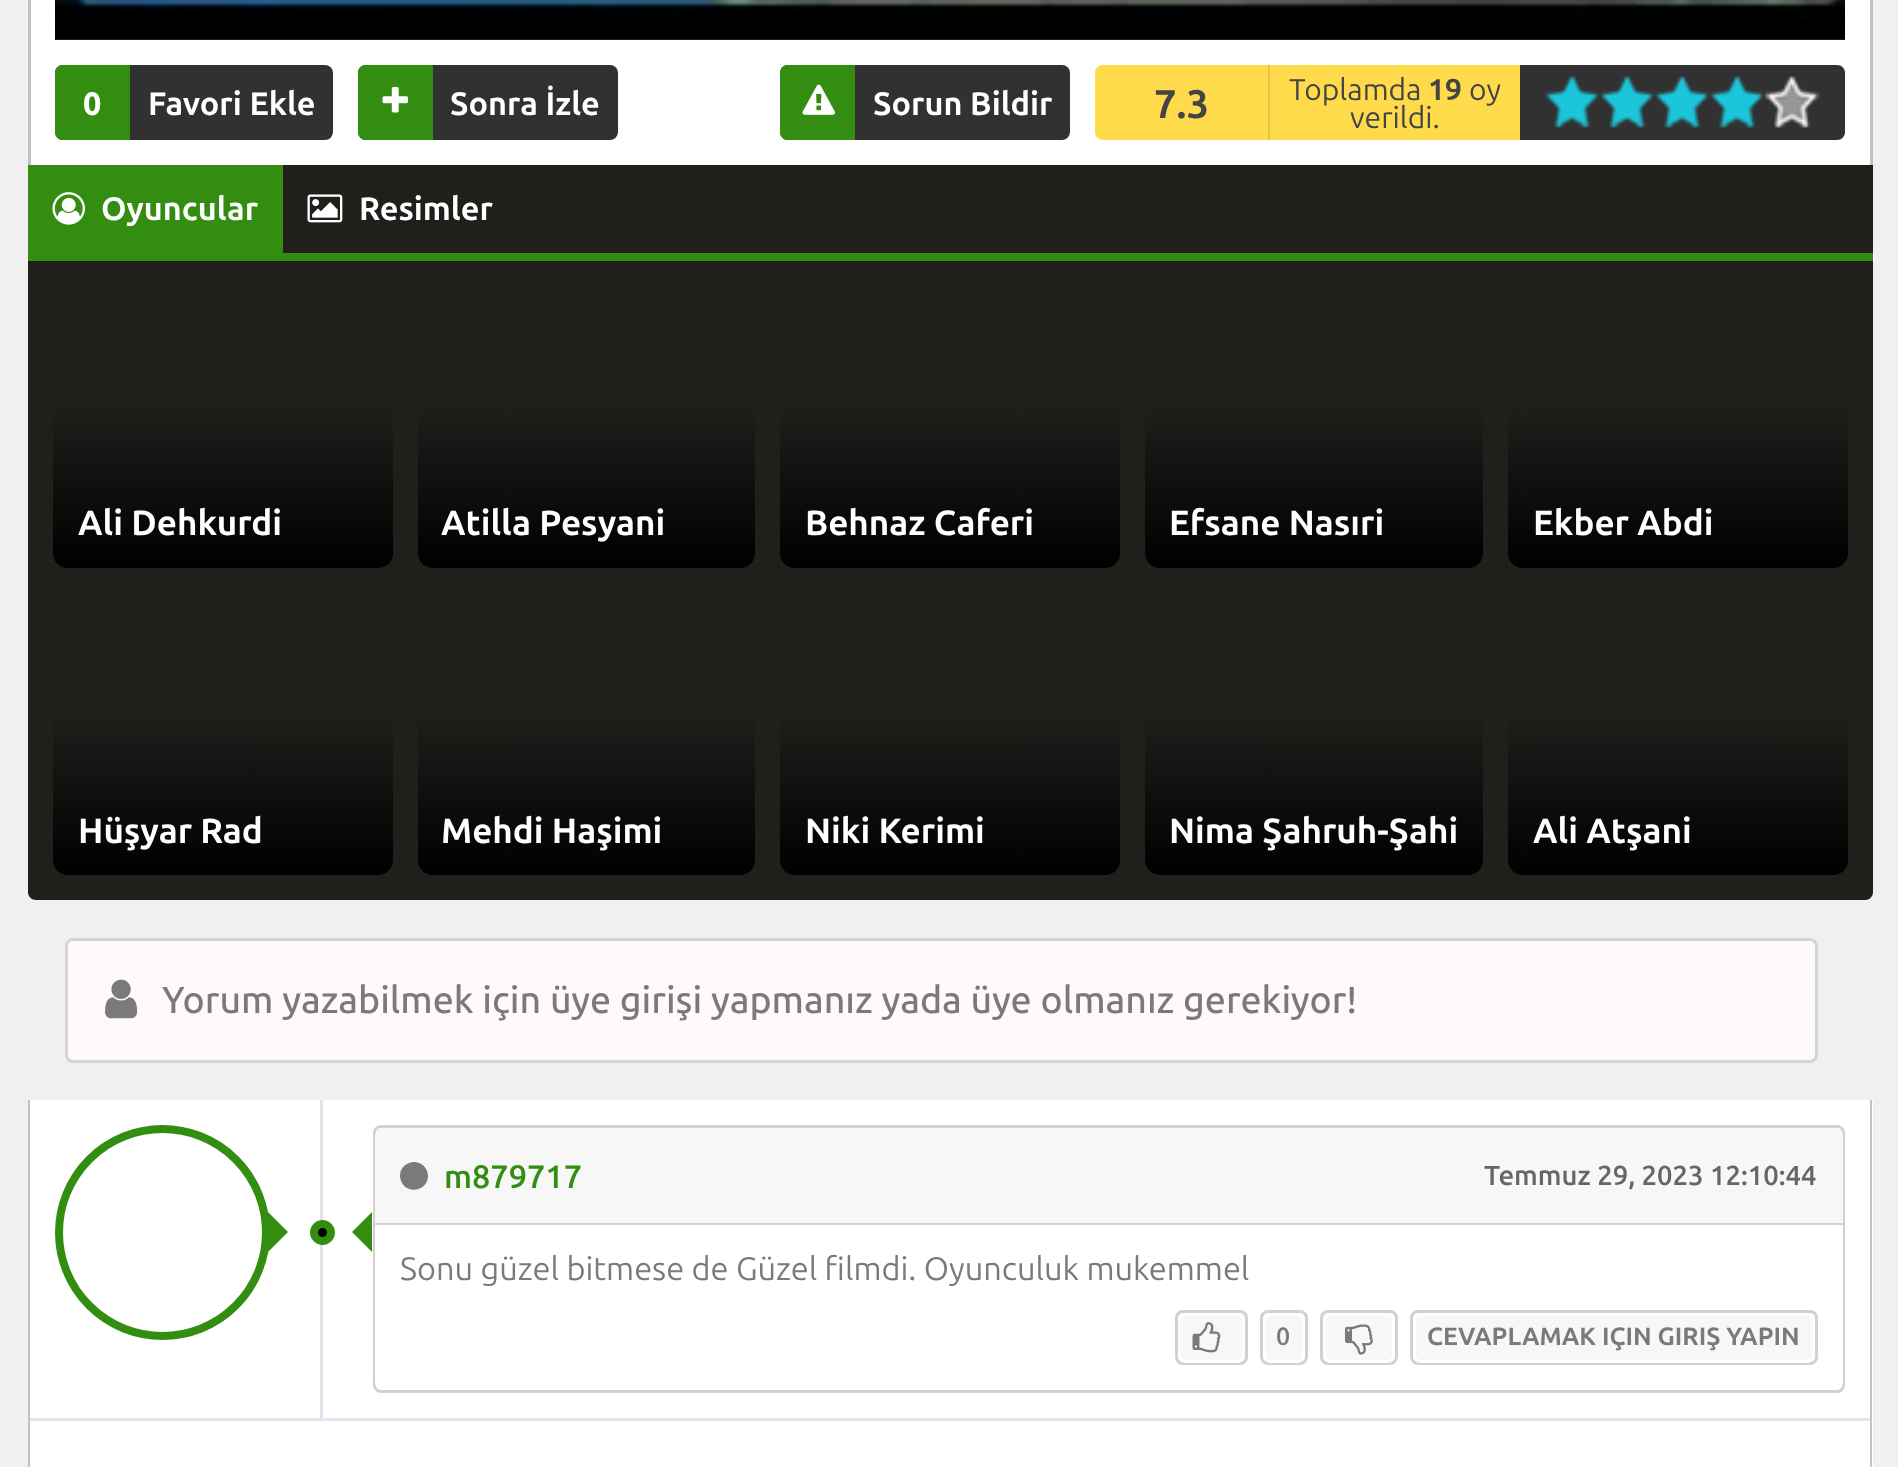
<svg xmlns="http://www.w3.org/2000/svg" width="1898" height="1467" viewBox="0 0 1898 1467">
  <defs>
    <linearGradient id="g1" gradientUnits="userSpaceOnUse" x1="223" y1="403" x2="223" y2="568"><stop offset="0" stop-color="#201f1c"/><stop offset="1" stop-color="#000"/></linearGradient>
    <linearGradient id="g2" gradientUnits="userSpaceOnUse" x1="586" y1="403" x2="586" y2="568"><stop offset="0" stop-color="#201f1c"/><stop offset="1" stop-color="#000"/></linearGradient>
    <linearGradient id="g3" gradientUnits="userSpaceOnUse" x1="950" y1="403" x2="950" y2="568"><stop offset="0" stop-color="#201f1c"/><stop offset="1" stop-color="#000"/></linearGradient>
    <linearGradient id="g4" gradientUnits="userSpaceOnUse" x1="1314" y1="403" x2="1314" y2="568"><stop offset="0" stop-color="#201f1c"/><stop offset="1" stop-color="#000"/></linearGradient>
    <linearGradient id="g5" gradientUnits="userSpaceOnUse" x1="1678" y1="403" x2="1678" y2="568"><stop offset="0" stop-color="#201f1c"/><stop offset="1" stop-color="#000"/></linearGradient>
    <linearGradient id="g6" gradientUnits="userSpaceOnUse" x1="223" y1="710" x2="223" y2="875"><stop offset="0" stop-color="#201f1c"/><stop offset="1" stop-color="#000"/></linearGradient>
    <linearGradient id="g7" gradientUnits="userSpaceOnUse" x1="586" y1="710" x2="586" y2="875"><stop offset="0" stop-color="#201f1c"/><stop offset="1" stop-color="#000"/></linearGradient>
    <linearGradient id="g8" gradientUnits="userSpaceOnUse" x1="950" y1="710" x2="950" y2="875"><stop offset="0" stop-color="#201f1c"/><stop offset="1" stop-color="#000"/></linearGradient>
    <linearGradient id="g9" gradientUnits="userSpaceOnUse" x1="1314" y1="710" x2="1314" y2="875"><stop offset="0" stop-color="#201f1c"/><stop offset="1" stop-color="#000"/></linearGradient>
    <linearGradient id="g10" gradientUnits="userSpaceOnUse" x1="1678" y1="710" x2="1678" y2="875"><stop offset="0" stop-color="#201f1c"/><stop offset="1" stop-color="#000"/></linearGradient>
  </defs>
  <rect width="100%" height="100%" fill="#f0f0f0"/>
  <path d="M31 0h1839v165H31z" fill="#fff"/>
  <path d="M1870 0h3v165H1870z" fill="#c2c2c2"/>
  <path d="M28 0h3v165H28z" fill="#c2c2c2"/>
  <path d="M55 39h1790v1H55z" fill="#333"/>
  <image x="55" y="0" width="1790" height="40" href="img/1.png"/>
  <rect x="55" y="65" width="278" height="75" rx="8" fill="#313131"/>
  <path d="M63 65H130V140H63C58.5 140 55 136.5 55 132V73C55 68.5 58.5 65 63 65Z" fill="#338d11"/>
  <rect x="358" y="65" width="260" height="75" rx="8" fill="#313131"/>
  <path d="M366 65H433V140H366C361.5 140 358 136.5 358 132V73C358 68.5 361.5 65 366 65Z" fill="#338d11"/>
  <image x="382" y="86" width="27" height="27" href="img/2.png"/>
  <rect x="780" y="65" width="290" height="75" rx="8" fill="#313131"/>
  <path d="M788 65H855V140H788C783.5 140 780 136.5 780 132V73C780 68.5 783.5 65 788 65Z" fill="#338d11"/>
  <image x="802" y="84" width="33" height="31" href="img/3.png"/>
  <path d="M1103 65H1270V140H1103C1098.5 140 1095 136.5 1095 132V73C1095 68.5 1098.5 65 1103 65Z" fill="#ffdb4c"/>
  <path d="M1268 65h2v75H1268z" fill="#e4c446"/>
  <path d="M1270 65h250v75H1270z" fill="#ffdb4c"/>
  <path d="M1520 65H1837C1841.5 65 1845 68.5 1845 73V132C1845 136.5 1841.5 140 1837 140H1520Z" fill="#313131"/>
  <image x="1765" y="76" width="55" height="52" href="img/4.png"/>
  <image x="1545" y="76" width="220" height="52" href="img/5.png"/>
  <path d="M28 165H1873V892C1873 896.5 1869.5 900 1865 900H36C31.5 900 28 896.5 28 892Z" fill="#201f1c"/>
  <path d="M28 253h1845v8H28z" fill="#338d11"/>
  <path d="M28 165h255v88H28z" fill="#338d11"/>
  <image x="52" y="192" width="33" height="33" href="img/6.png"/>
  <image x="307" y="194" width="36" height="29" href="img/7.png"/>
  <path d="M53 403H393V553C393 561.5 386.5 568 378 568H68C59.5 568 53 561.5 53 553Z" fill="url(#g1)"/>
  <path d="M418 403H755V553C755 561.5 748.5 568 740 568H433C424.5 568 418 561.5 418 553Z" fill="url(#g2)"/>
  <path d="M780 403H1120V553C1120 561.5 1113.5 568 1105 568H795C786.5 568 780 561.5 780 553Z" fill="url(#g3)"/>
  <path d="M1145 403H1483V553C1483 561.5 1476.5 568 1468 568H1160C1151.5 568 1145 561.5 1145 553Z" fill="url(#g4)"/>
  <path d="M1508 403H1848V553C1848 561.5 1841.5 568 1833 568H1523C1514.5 568 1508 561.5 1508 553Z" fill="url(#g5)"/>
  <path d="M53 710H393V860C393 868.5 386.5 875 378 875H68C59.5 875 53 868.5 53 860Z" fill="url(#g6)"/>
  <path d="M418 710H755V860C755 868.5 748.5 875 740 875H433C424.5 875 418 868.5 418 860Z" fill="url(#g7)"/>
  <path d="M780 710H1120V860C1120 868.5 1113.5 875 1105 875H795C786.5 875 780 868.5 780 860Z" fill="url(#g8)"/>
  <path d="M1145 710H1483V860C1483 868.5 1476.5 875 1468 875H1160C1151.5 875 1145 868.5 1145 860Z" fill="url(#g9)"/>
  <path d="M1508 710H1848V860C1848 868.5 1841.5 875 1833 875H1523C1514.5 875 1508 868.5 1508 860Z" fill="url(#g10)"/>
  <rect x="66.5" y="939.5" width="1750" height="122" rx="6.5" fill="#fff9f9" stroke="#d4d4db" stroke-width="3"/>
  <image x="105" y="979" width="33" height="40" href="img/8.png"/>
  <path d="M28 1100H1873V1465C1873 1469.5 1869.5 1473 1865 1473H36C31.5 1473 28 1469.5 28 1465Z" fill="#fff"/>
  <path d="M28 1100H1872V1465C1872 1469 1869 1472 1865 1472H35C31 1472 28 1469 28 1465ZM30 1100H1870V1465C1870 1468 1868 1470 1865 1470H35C32 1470 30 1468 30 1465Z" fill="#c2c2c2" fill-rule="evenodd"/>
  <path d="M268 1252V1212L288 1232Z" fill="#338d11"/>
  <circle cx="162.5" cy="1232.5" r="103.5" fill="none" stroke="#338d11" stroke-width="8"/>
  <path d="M320 1100h3v318H320z" fill="#e1e4e6"/>
  <circle cx="322.5" cy="1232.5" r="8.5" fill="#000" stroke="#338d11" stroke-width="8"/>
  <path d="M372 1212V1252L352 1232Z" fill="#338d11"/>
  <rect x="374.5" y="1126.5" width="1469" height="265" rx="6.5" fill="none" stroke="#d1d1d1" stroke-width="3"/>
  <path d="M383 1128H1835C1839.5 1128 1843 1131.5 1843 1136V1225H375V1136C375 1131.5 378.5 1128 383 1128Z" fill="#f7f7f7"/>
  <path d="M375 1223h1468v2H375z" fill="#d1d1d1"/>
  <path d="M426 1169C427.5 1171.5 428 1174 428 1177C427 1190.5 408.5 1194.5 402 1183C400.5 1180.5 400 1177.5 400 1175C401 1161.5 419 1157 426 1169Z" fill="#7a7a7a"/>
  <path d="M375 1225H1843V1382C1843 1386.5 1839.5 1390 1835 1390H383C378.5 1390 375 1386.5 375 1382Z" fill="#fff"/>
  <rect x="1176.5" y="1311.5" width="70" height="52" rx="6.5" fill="none" stroke="#d1d1d1" stroke-width="3"/>
  <rect x="1179.5" y="1314.5" width="64" height="47" rx="6.5" fill="#f7f7f7" stroke="#fff" stroke-width="3"/>
  <image x="1192" y="1322" width="29" height="31" href="img/9.png"/>
  <rect x="1261.5" y="1311.5" width="45" height="52" rx="6.5" fill="none" stroke="#d1d1d1" stroke-width="3"/>
  <rect x="1264.5" y="1314.5" width="39" height="47" rx="6.5" fill="#f7f7f7" stroke="#fff" stroke-width="3"/>
  <rect x="1321.5" y="1311.5" width="75" height="52" rx="6.5" fill="none" stroke="#d1d1d1" stroke-width="3"/>
  <rect x="1324.5" y="1314.5" width="69" height="47" rx="6.5" fill="#f7f7f7" stroke="#fff" stroke-width="3"/>
  <image x="1345" y="1324" width="28" height="31" href="img/10.png"/>
  <rect x="1411.5" y="1311.5" width="405" height="52" rx="6.5" fill="none" stroke="#d1d1d1" stroke-width="3"/>
  <rect x="1414.5" y="1314.5" width="399" height="47" rx="6.5" fill="#f7f7f7" stroke="#fff" stroke-width="3"/>
  <path d="M30 1418h1840v3H30z" fill="#e4e3f0"/>
  <text x="83" y="115" font-family="Ubuntu" font-size="32.5" font-weight="800" fill="#fff">0</text>
  <g font-family="Ubuntu" font-size="32.5" font-weight="bold" fill="#fff">
    <text x="148" y="115">Favori Ekle</text>
    <text x="450" y="115">Sonra İzle</text>
    <text x="873" y="115">Sorun Bildir</text>
  </g>
  <text x="1154" y="118" font-family="Ubuntu" font-size="40" font-weight="bold" fill="#444">7.3</text>
  <text x="1289" y="100" font-family="Ubuntu" font-size="30" fill="#444">Toplamda</text>
  <text x="1428" y="100" font-family="Ubuntu" font-size="30" font-weight="bold" fill="#444">19</text>
  <g font-family="Ubuntu" font-size="30" fill="#444">
    <text x="1469" y="100">oy</text>
    <text x="1350" y="128">verildi.</text>
  </g>
  <g font-family="Ubuntu" font-size="32.5" font-weight="bold" fill="#fff">
    <text x="101" y="220">Oyuncular</text>
    <text x="359" y="220">Resimler</text>
  </g>
  <g font-family="Ubuntu" font-size="35" font-weight="bold" fill="#fff">
    <text x="78" y="535">Ali Dehkurdi</text>
    <text x="441" y="535">Atilla Pesyani</text>
    <text x="805" y="535">Behnaz Caferi</text>
    <text x="1169" y="535">Efsane Nasıri</text>
    <text x="1533" y="535">Ekber Abdi</text>
    <text x="78" y="843">Hüşyar Rad</text>
    <text x="441" y="843">Mehdi Haşimi</text>
    <text x="805" y="843">Niki Kerimi</text>
    <text x="1169" y="843">Nima Şahruh-Şahi</text>
    <text x="1533" y="843">Ali Atşani</text>
  </g>
  <text x="162" y="1013" font-family="Ubuntu" font-size="37.5" font-weight="500" fill="#7a7a7a">Yorum yazabilmek için üye girişi yapmanız yada üye olmanız gerekiyor!</text>
  <text x="444" y="1188" font-family="Ubuntu" font-size="32.5" font-weight="600" fill="#338d11">m879717</text>
  <text x="1484" y="1185" font-family="Ubuntu" font-size="27.5" font-weight="600" fill="#666">Temmuz 29, 2023 12:10:44</text>
  <text x="400" y="1280" font-family="Ubuntu" font-size="32.5" fill="#7a7a7a">Sonu güzel bitmese de Güzel filmdi. Oyunculuk mukemmel</text>
  <text x="1276" y="1345" font-family="Ubuntu" font-size="25" font-weight="600" fill="#7a7a7a">0</text>
  <text x="1427" y="1345" font-family="Ubuntu" font-size="25" font-weight="bold" fill="#7a7a7a">CEVAPLAMAK IÇIN GIRIŞ YAPIN</text>
</svg>
